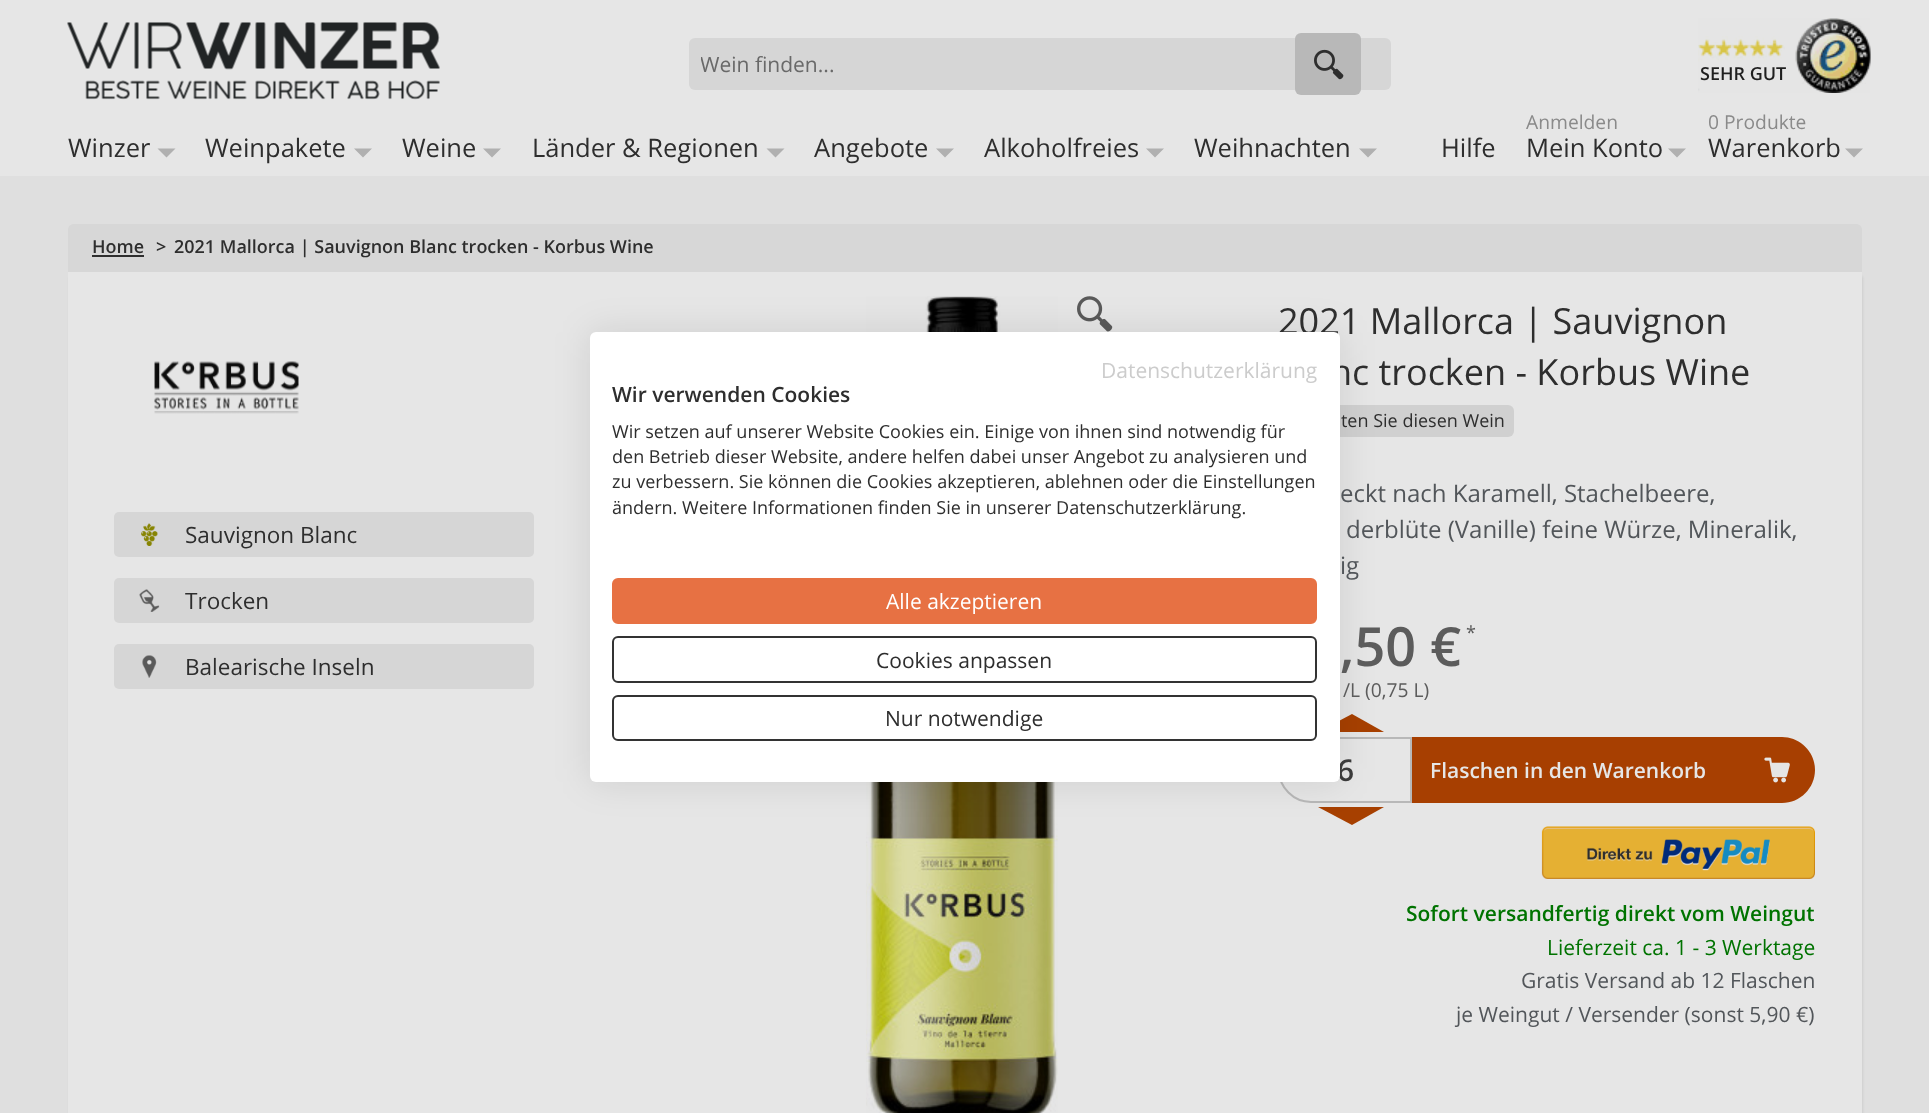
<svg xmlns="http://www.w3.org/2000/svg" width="1929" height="1113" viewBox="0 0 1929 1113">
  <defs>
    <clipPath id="clip1"><path d="M701 50h678v28H701z"/></clipPath>
  </defs>
  <rect width="100%" height="100%" fill="#dfdfdf"/>
  <path d="M0 0h1929v176H0z" fill="#e6e6e6"/>
  <image x="67" y="22" width="373" height="78" href="img/1.png"/>
  <rect x="689" y="38" width="702" height="52" rx="6" fill="#d6d6d6"/>
  <rect x="1295" y="33" width="66" height="62" rx="6" fill="#b8b8b8"/>
  <image x="1314" y="49" width="30" height="31" href="img/2.png"/>
  <image x="1698" y="18" width="173" height="75" href="img/3.png"/>
  <path d="M157.5 148.5H175.5L166.5 157.5Z" fill="#b0b0b0"/>
  <path d="M354 148.5H372L363 157.5Z" fill="#b0b0b0"/>
  <path d="M483 148.5H501L492 157.5Z" fill="#b0b0b0"/>
  <path d="M766.5 148.5H784.5L775.5 157.5Z" fill="#b0b0b0"/>
  <path d="M936 148.5H954L945 157.5Z" fill="#b0b0b0"/>
  <path d="M1146 148.5H1164L1155 157.5Z" fill="#b0b0b0"/>
  <path d="M1359 148.5H1377L1368 157.5Z" fill="#b0b0b0"/>
  <path d="M1668 148.5H1686L1677 157.5Z" fill="#b0b0b0"/>
  <path d="M1845 148.5H1863L1854 157.5Z" fill="#b0b0b0"/>
  <path d="M74 224H1856C1859.5 224 1862 226.5 1862 230V272H68V230C68 226.5 70.5 224 74 224Z" fill="#d7d7d7"/>
  <path d="M92 255h52v2H92z" fill="#2e2e2e"/>
  <rect x="69" y="276" width="1794" height="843" rx="3" fill="#2d2d2d1a" filter="blur(1px)"/>
  <path d="M68 272h1794v841H68z" fill="#e6e6e6"/>
  <image x="154" y="361" width="145" height="53" href="img/4.png"/>
  <rect x="114" y="512" width="420" height="45" rx="5" fill="#d6d6d6"/>
  <image x="141" y="523" width="17" height="23" href="img/5.png"/>
  <rect x="114" y="578" width="420" height="45" rx="5" fill="#d6d6d6"/>
  <image x="139" y="589" width="21" height="23" href="img/6.png"/>
  <rect x="114" y="644" width="420" height="45" rx="5" fill="#d6d6d6"/>
  <image x="142" y="655" width="15" height="23" href="img/7.png"/>
  <image x="866" y="296" width="192" height="817" href="img/8.png"/>
  <image x="1077" y="296" width="36" height="36" href="img/9.png"/>
  <rect x="1278" y="405" width="236" height="32" rx="6" fill="#d0d0d0"/>
  <path d="M1384 732H1318L1352 714Z" fill="#a74000"/>
  <path d="M1311 738H1411V802H1311C1293.5 802 1279 787.5 1279 770C1279 752.5 1293.5 738 1311 738Z" fill="none" stroke="#b8b8b8" stroke-width="2"/>
  <path d="M1318 807H1384L1352 825Z" fill="#a74000"/>
  <path d="M1412 737H1782C1800 737 1815 752 1815 770C1815 788 1800 803 1782 803H1412Z" fill="#a73f01"/>
  <image x="1764" y="757" width="26" height="26" href="img/10.png"/>
  <image x="1541" y="826" width="274" height="53" href="img/11.png"/>
  <rect x="590" y="332" width="750" height="450" rx="6" fill="#0000001a" filter="blur(18px)"/>
  <g clip-path="url(#clip1)">
    <text x="700" y="72" font-family="Open Sans" font-size="21" fill="#696969">Wein finden...</text>
  </g>
  <text x="1700" y="80" font-family="Open Sans" font-size="18" font-weight="600" fill="#1f1f1f">SEHR GUT</text>
  <g font-family="Open Sans" font-size="25.5" fill="#2e2e2e">
    <text x="68" y="157">Winzer</text>
    <text x="205" y="157">Weinpakete</text>
    <text x="402" y="157">Weine</text>
    <text x="532" y="157">Länder &amp; Regionen</text>
    <text x="814" y="157">Angebote</text>
    <text x="984" y="157">Alkoholfreies</text>
    <text x="1194" y="157">Weihnachten</text>
    <text x="1441" y="157">Hilfe</text>
  </g>
  <text x="1526" y="129" font-family="Open Sans" font-size="19.25" fill="#8a8a8a">Anmelden</text>
  <text x="1526" y="157" font-family="Open Sans" font-size="25.5" fill="#2e2e2e">Mein Konto</text>
  <text x="1708" y="129" font-family="Open Sans" font-size="19.25" fill="#8a8a8a">0 Produkte</text>
  <text x="1708" y="157" font-family="Open Sans" font-size="25.5" fill="#2e2e2e">Warenkorb</text>
  <g font-family="Open Sans" font-size="18" font-weight="600" fill="#2e2e2e">
    <text x="92" y="253">Home</text>
    <text x="156" y="253">&gt;</text>
    <text x="174" y="253">2021 Mallorca | Sauvignon Blanc trocken - Korbus Wine</text>
  </g>
  <g font-family="Open Sans" font-size="22.5" fill="#2e2e2e">
    <text x="185" y="543">Sauvignon Blanc</text>
    <text x="185" y="609">Trocken</text>
    <text x="185" y="675">Balearische Inseln</text>
  </g>
  <g font-family="Open Sans" font-size="36" fill="#2e2e2e">
    <text x="1278" y="334">2021 Mallorca | Sauvignon</text>
    <text x="1330" y="385">nc trocken - Korbus Wine</text>
  </g>
  <text x="1341" y="427" font-family="Open Sans" font-size="18" fill="#2e2e2e">ten Sie diesen Wein</text>
  <g font-family="Open Sans" font-size="24" fill="#52565a">
    <text x="1340" y="502">eckt nach Karamell, Stachelbeere,</text>
    <text x="1346" y="538">derblüte (Vanille) feine Würze, Mineralik,</text>
    <text x="1340" y="574">ig</text>
  </g>
  <text x="1340" y="666" font-family="Open Sans" font-size="54" font-weight="600" fill="#5c5c5c">,50 €</text>
  <text x="1466" y="639" font-family="Open Sans" font-size="18" fill="#5c5c5c">*</text>
  <text x="1343" y="697" font-family="Open Sans" font-size="19.25" fill="#5c5c5c">/L (0,75 L)</text>
  <text x="1337" y="781" font-family="Open Sans" font-size="30" font-weight="600" fill="#3a3a3a">6</text>
  <text x="1430" y="778" font-family="Open Sans" font-size="21" font-weight="600" fill="#e6e6e6">Flaschen in den Warenkorb</text>
  <text x="1406" y="921" font-family="Open Sans" font-size="21" font-weight="600" fill="#007300">Sofort versandfertig direkt vom Weingut</text>
  <text x="1547" y="955" font-family="Open Sans" font-size="21" fill="#007300">Lieferzeit ca. 1 - 3 Werktage</text>
  <g font-family="Open Sans" font-size="21" fill="#52565a">
    <text x="1521" y="988">Gratis Versand ab 12 Flaschen</text>
    <text x="1456" y="1022">je Weingut / Versender (sonst 5,90 €)</text>
  </g>
  <rect x="590" y="332" width="750" height="450" rx="6" fill="#fff"/>
  <text x="1101" y="378" font-family="Open Sans" font-size="21" fill="#ccc">Datenschutzerklärung</text>
  <text x="612" y="402" font-family="Open Sans" font-size="21" font-weight="600" fill="#2e2e2e">Wir verwenden Cookies</text>
  <g font-family="Open Sans" font-size="18" fill="#2e2e2e">
    <text x="612" y="438">Wir setzen auf unserer Website Cookies ein. Einige von ihnen sind notwendig für</text>
    <text x="612" y="463">den Betrieb dieser Website, andere helfen dabei unser Angebot zu analysieren und</text>
    <text x="612" y="488">zu verbessern. Sie können die Cookies akzeptieren, ablehnen oder die Einstellungen</text>
    <text x="612" y="514">ändern. Weitere Informationen finden Sie in unserer Datenschutzerklärung.</text>
  </g>
  <rect x="613" y="579" width="703" height="44" rx="5" fill="#e77143" stroke="#e77143" stroke-width="2"/>
  <text x="886" y="609" font-family="Open Sans" font-size="21" fill="#fff">Alle akzeptieren</text>
  <rect x="613" y="637" width="703" height="45" rx="5" fill="none" stroke="#333" stroke-width="2"/>
  <text x="876" y="668" font-family="Open Sans" font-size="21" fill="#2e2e2e">Cookies anpassen</text>
  <rect x="613" y="696" width="703" height="44" rx="5" fill="none" stroke="#333" stroke-width="2"/>
  <text x="885" y="726" font-family="Open Sans" font-size="21" fill="#2e2e2e">Nur notwendige</text>
</svg>
